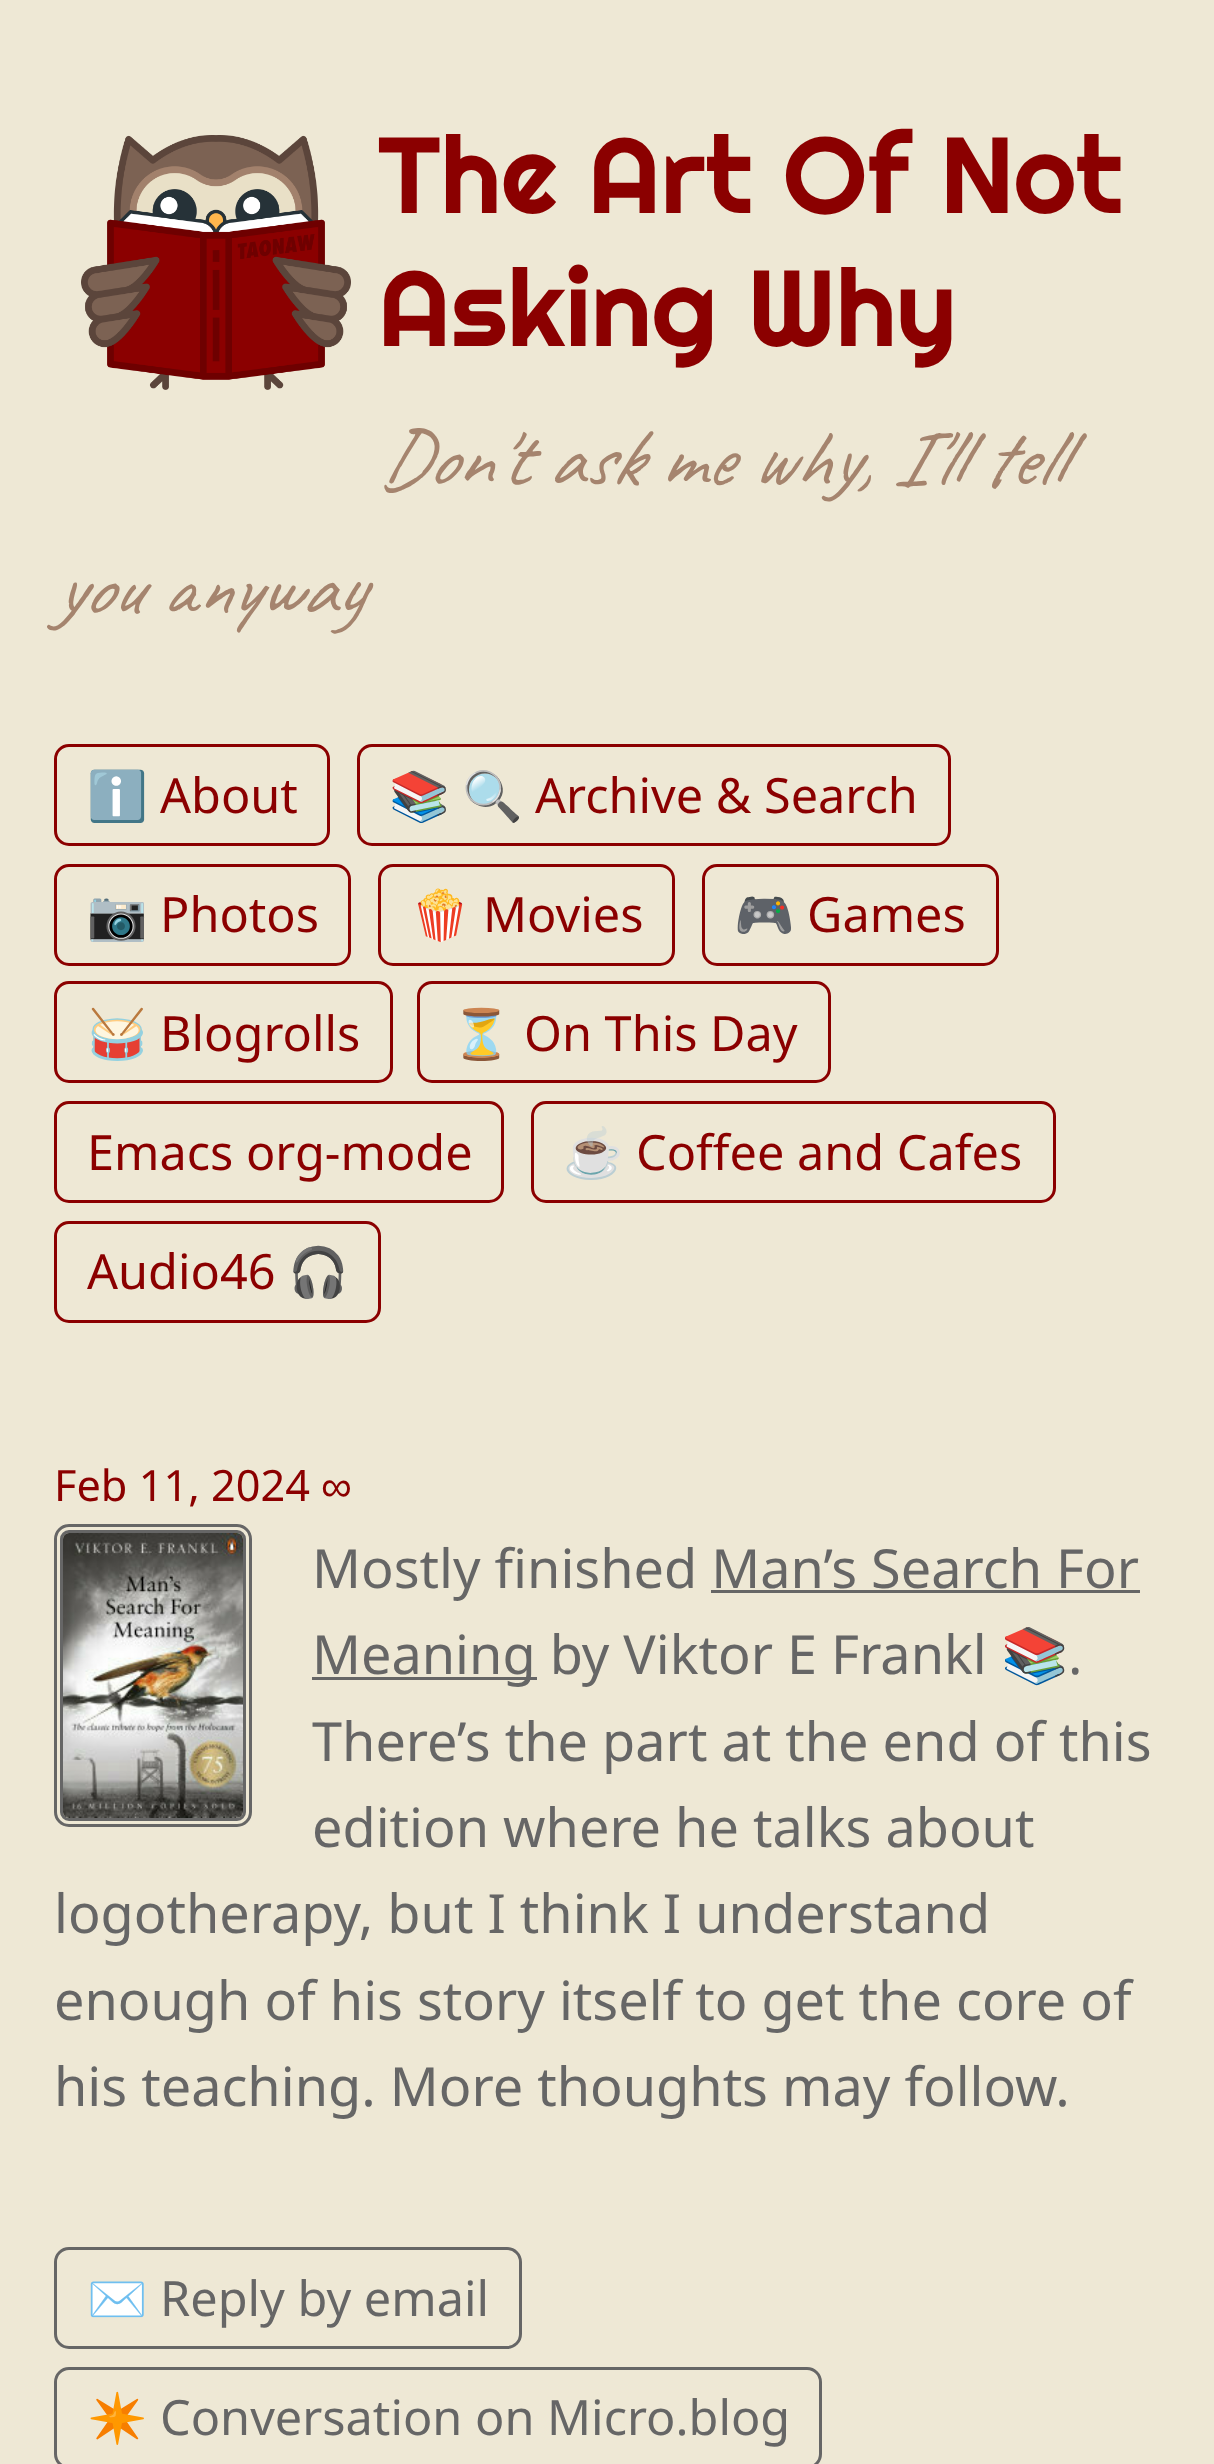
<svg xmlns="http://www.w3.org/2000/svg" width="1214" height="2464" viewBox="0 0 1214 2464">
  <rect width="100%" height="100%" fill="#eee8d5"/>
  <image x="81" y="135" width="270" height="255" href="img/1.png"/>
  <rect x="55.5" y="745.5" width="273" height="99" rx="13.5" fill="none" stroke="#8b0000" stroke-width="3"/>
  <rect x="358.5" y="745.5" width="591" height="99" rx="13.5" fill="none" stroke="#8b0000" stroke-width="3"/>
  <rect x="55.5" y="865.5" width="294" height="99" rx="13.5" fill="none" stroke="#8b0000" stroke-width="3"/>
  <rect x="379.5" y="865.5" width="294" height="99" rx="13.5" fill="none" stroke="#8b0000" stroke-width="3"/>
  <rect x="703.5" y="865.5" width="294" height="99" rx="13.5" fill="none" stroke="#8b0000" stroke-width="3"/>
  <rect x="55.5" y="982.5" width="336" height="99" rx="13.5" fill="none" stroke="#8b0000" stroke-width="3"/>
  <rect x="418.5" y="982.5" width="411" height="99" rx="13.5" fill="none" stroke="#8b0000" stroke-width="3"/>
  <rect x="55.5" y="1102.5" width="447" height="99" rx="13.5" fill="none" stroke="#8b0000" stroke-width="3"/>
  <rect x="532.5" y="1102.5" width="522" height="99" rx="13.5" fill="none" stroke="#8b0000" stroke-width="3"/>
  <rect x="55.5" y="1222.5" width="324" height="99" rx="13.5" fill="none" stroke="#8b0000" stroke-width="3"/>
  <rect x="55.5" y="1525.5" width="195" height="300" rx="13.5" fill="none" stroke="#666" stroke-width="3"/>
  <rect x="61.5" y="1531.5" width="183" height="288" rx="7.5" fill="none" stroke="#666" stroke-width="3"/>
  <image x="63" y="1533" width="180" height="285" href="img/2.png"/>
  <path d="M711 1590h429v3H711z" fill="#666"/>
  <path d="M312 1677h225v3H312z" fill="#666"/>
  <rect x="55.5" y="2248.5" width="465" height="99" rx="13.5" fill="none" stroke="#666" stroke-width="3"/>
  <rect x="55.5" y="2368.5" width="765" height="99" rx="13.5" fill="none" stroke="#666" stroke-width="3"/>
  <g font-family="Righteous" font-size="108" fill="#8b0000">
    <text x="378" y="213">The Art Of Not</text>
    <text x="378" y="346">Asking Why</text>
  </g>
  <g font-family="Caveat" font-size="81" font-style="italic" fill="#a5846e">
    <text x="378" y="485">Don't ask me why, I'll tell</text>
    <text x="54" y="614">you anyway</text>
  </g>
  <text x="87" y="813" font-family="Noto Color Emoji" font-size="48.6" fill="#8b0000">ℹ️</text>
  <text x="160" y="813" font-family="Noto Sans" font-size="48.6" fill="#8b0000">About</text>
  <g font-family="Noto Color Emoji" font-size="48.6" fill="#8b0000">
    <text x="389" y="813">📚</text>
    <text x="462" y="813">🔍</text>
  </g>
  <text x="535" y="813" font-family="Noto Sans" font-size="48.6" fill="#8b0000">Archive &amp; Search</text>
  <text x="87" y="932" font-family="Noto Color Emoji" font-size="48.6" fill="#8b0000">📷</text>
  <text x="160" y="932" font-family="Noto Sans" font-size="48.6" fill="#8b0000">Photos</text>
  <text x="410" y="932" font-family="Noto Color Emoji" font-size="48.6" fill="#8b0000">🍿</text>
  <text x="483" y="932" font-family="Noto Sans" font-size="48.6" fill="#8b0000">Movies</text>
  <text x="734" y="932" font-family="Noto Color Emoji" font-size="48.6" fill="#8b0000">🎮</text>
  <text x="807" y="932" font-family="Noto Sans" font-size="48.6" fill="#8b0000">Games</text>
  <text x="87" y="1051" font-family="Noto Color Emoji" font-size="48.6" fill="#8b0000">🥁</text>
  <text x="160" y="1051" font-family="Noto Sans" font-size="48.6" fill="#8b0000">Blogrolls</text>
  <text x="451" y="1051" font-family="Noto Color Emoji" font-size="48.6" fill="#8b0000">⏳</text>
  <g font-family="Noto Sans" font-size="48.6" fill="#8b0000">
    <text x="524" y="1051">On This Day</text>
    <text x="87" y="1170">Emacs org-mode</text>
  </g>
  <text x="563" y="1170" font-family="Noto Color Emoji" font-size="48.6" fill="#8b0000">☕️</text>
  <g font-family="Noto Sans" font-size="48.6" fill="#8b0000">
    <text x="636" y="1170">Coffee and Cafes</text>
    <text x="87" y="1289">Audio46</text>
  </g>
  <text x="288" y="1289" font-family="Noto Color Emoji" font-size="48.6" fill="#8b0000">🎧</text>
  <text x="54" y="1501" font-family="Noto Sans" font-size="43.25" fill="#8b0000">Feb 11, 2024</text>
  <text x="321" y="1501" font-family="Liberation Sans" font-size="43.25" fill="#8b0000">∞</text>
  <g font-family="Noto Sans" font-size="54" fill="#666">
    <text x="312" y="1588">Mostly finished Man’s Search For</text>
    <text x="312" y="1674">Meaning by Viktor E Frankl</text>
  </g>
  <text x="1001" y="1674" font-family="Noto Color Emoji" font-size="54" fill="#666">📚</text>
  <g font-family="Noto Sans" font-size="54" fill="#666">
    <text x="1068" y="1674">.</text>
    <text x="312" y="1761">There’s the part at the end of this</text>
    <text x="312" y="1847">edition where he talks about</text>
    <text x="54" y="1933">logotherapy, but I think I understand</text>
    <text x="54" y="2020">enough of his story itself to get the core of</text>
    <text x="54" y="2106">his teaching. More thoughts may follow.</text>
  </g>
  <text x="87" y="2316" font-family="Noto Color Emoji" font-size="48.6" fill="#666">✉️</text>
  <text x="160" y="2316" font-family="Noto Sans" font-size="48.6" fill="#666">Reply by email</text>
  <text x="87" y="2435" font-family="Noto Color Emoji" font-size="48.6" fill="#666">✴️</text>
  <text x="160" y="2435" font-family="Noto Sans" font-size="48.6" fill="#666">Conversation on Micro.blog</text>
</svg>
